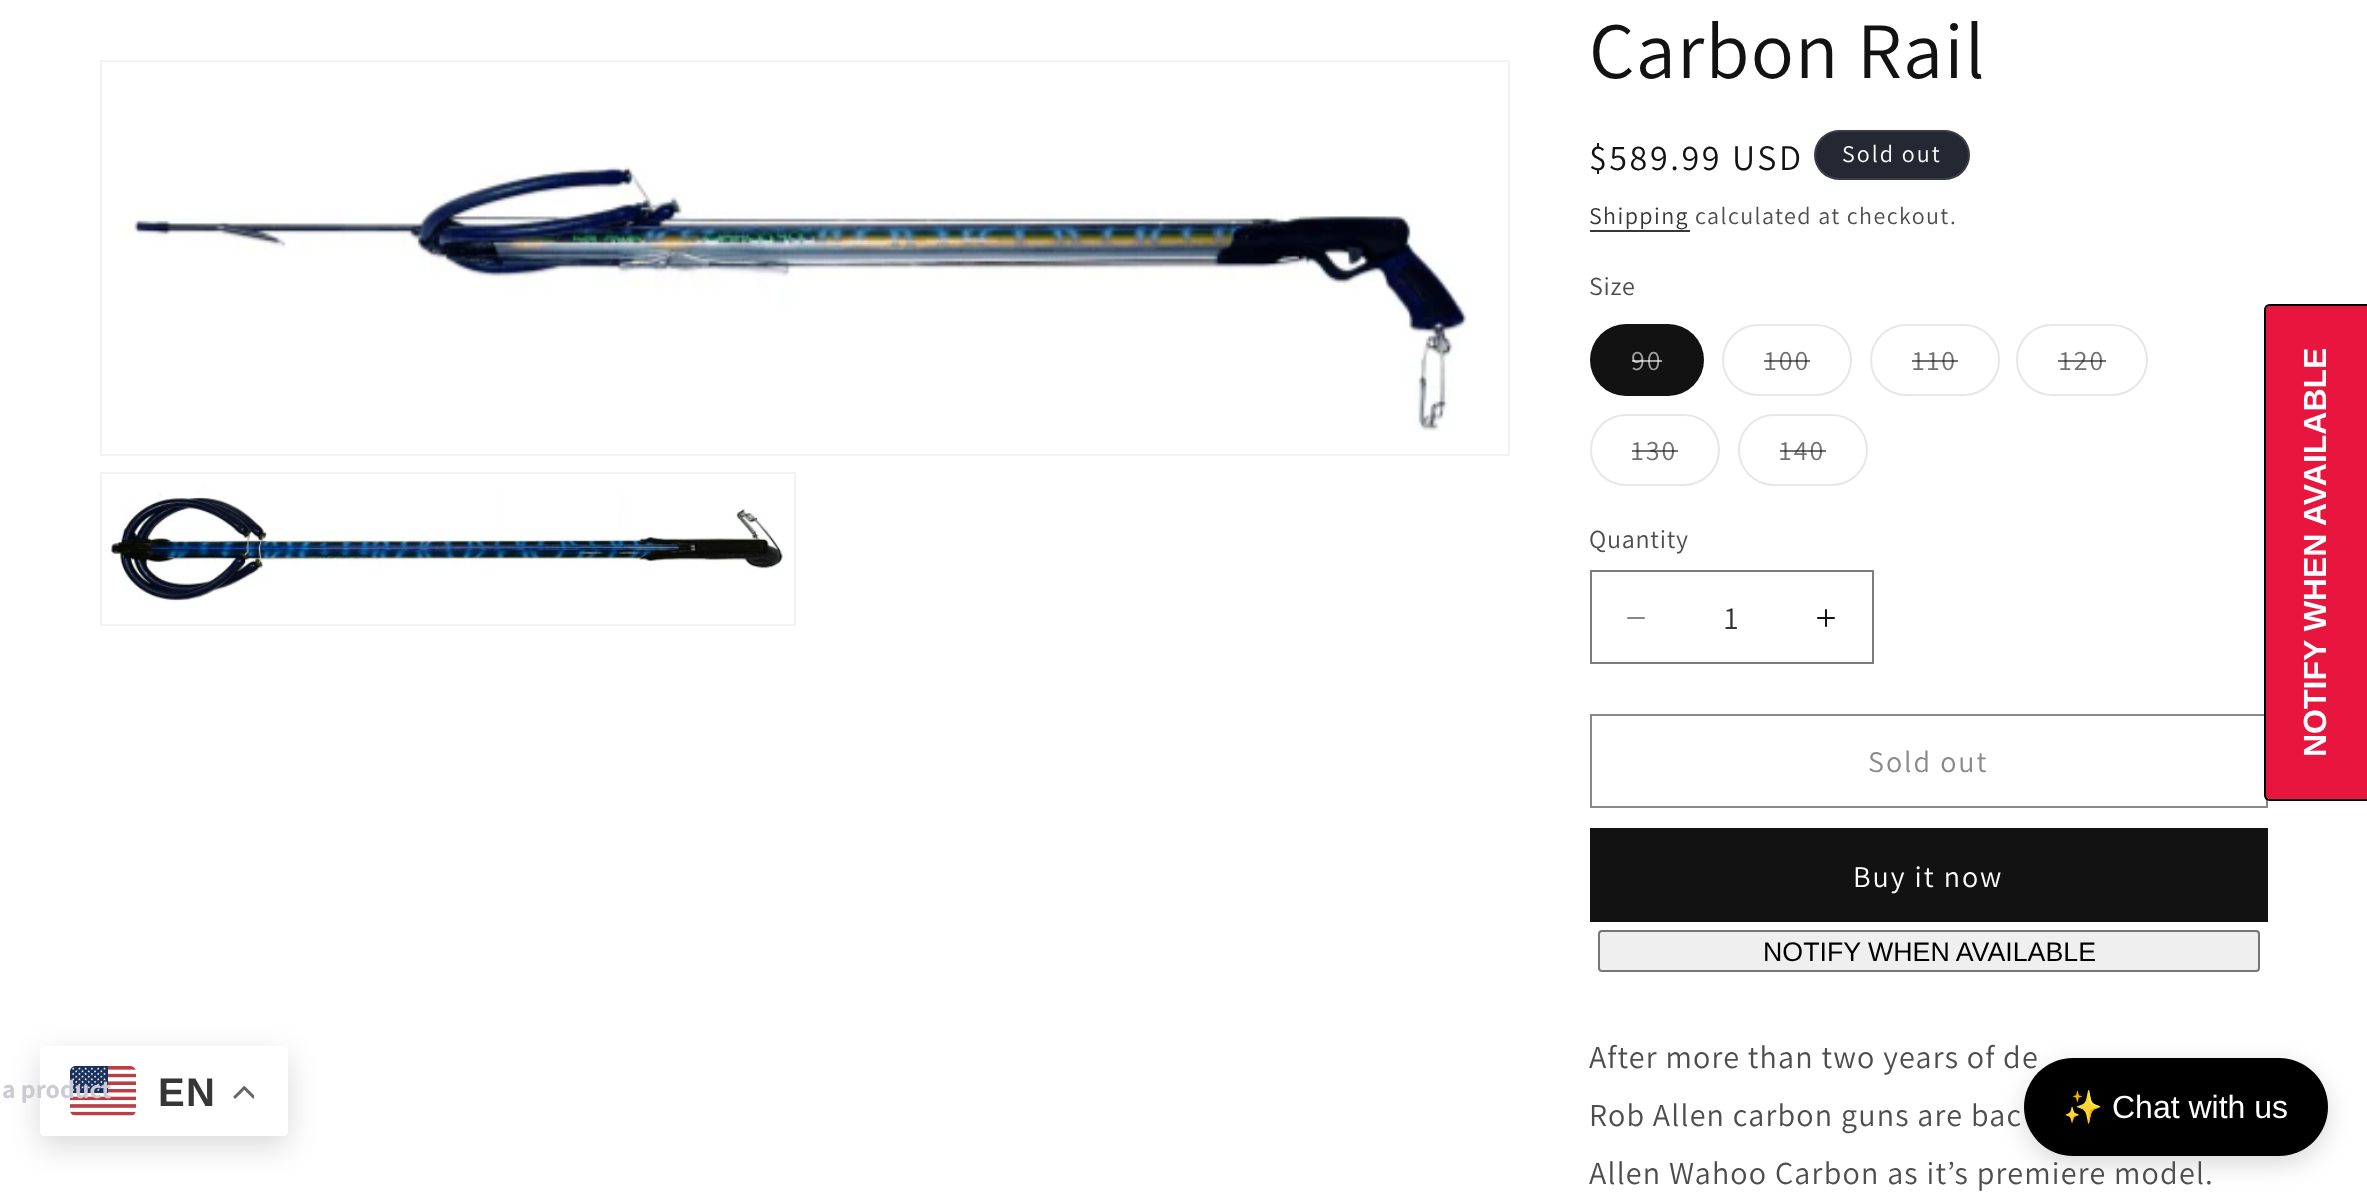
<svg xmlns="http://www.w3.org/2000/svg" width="2367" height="1195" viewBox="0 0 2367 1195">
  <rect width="100%" height="100%" fill="#fff"/>
  <path d="M101 61h1408v394H101z" fill="none" stroke="#f3f3f3" stroke-width="2"/>
  <image x="124" y="166" width="1344" height="265" href="img/1.png"/>
  <path d="M101 473h694v152H101z" fill="none" stroke="#f3f3f3" stroke-width="2"/>
  <image x="111" y="485" width="674" height="118" href="img/2.png"/>
  <rect x="1814" y="130" width="156" height="50" rx="25" fill="#242833"/>
  <rect x="1815" y="131" width="154" height="48" rx="24" fill="none" stroke="#ffffff1a" stroke-width="2"/>
  <path d="M1590 230h100v2H1590z" fill="#363636"/>
  <rect x="1590" y="324" width="114" height="72" rx="36" fill="#121212"/>
  <rect x="1591" y="325" width="112" height="70" rx="35" fill="none" stroke="#1212121a" stroke-width="2"/>
  <rect x="1723" y="325" width="128" height="70" rx="35" fill="none" stroke="#e7e7e7" stroke-width="2"/>
  <rect x="1871" y="325" width="128" height="70" rx="35" fill="none" stroke="#e7e7e7" stroke-width="2"/>
  <rect x="2017" y="325" width="130" height="70" rx="35" fill="none" stroke="#e7e7e7" stroke-width="2"/>
  <rect x="1591" y="415" width="128" height="70" rx="35" fill="none" stroke="#e7e7e7" stroke-width="2"/>
  <rect x="1739" y="415" width="128" height="70" rx="35" fill="none" stroke="#e7e7e7" stroke-width="2"/>
  <image x="1627" y="617" width="18" height="2" href="img/3.png"/>
  <image x="1817" y="609" width="18" height="18" href="img/4.png"/>
  <path d="M1591 571h282v92H1591z" fill="none" stroke="#7d7d7d" stroke-width="2"/>
  <path d="M1591 715h676v92H1591z" fill="none" stroke="#898989" stroke-width="2"/>
  <path d="M1590 828h678v94H1590z" fill="#121212"/>
  <rect x="1599" y="931" width="660" height="40" rx="3" fill="#efefef" stroke="#767676" stroke-width="2"/>
  <path d="M2266 795V310C2266 308 2267 306 2270 306H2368V799H2270C2267 799 2266 797 2266 795Z" fill="#e8153e"/>
  <path d="M2264 795V310C2264 307 2266 304 2270 304H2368V801H2270C2266 801 2264 798 2264 795ZM2266 795V310C2266 308 2267 306 2270 306H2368V799H2270C2267 799 2266 797 2266 795Z" fill="#000" fill-rule="evenodd"/>
  <rect x="40" y="1056" width="248" height="90" rx="4" fill="#00000026" filter="blur(15px)"/>
  <rect x="40" y="1046" width="248" height="90" rx="4" fill="#fff"/>
  <image x="70" y="1066" width="66" height="50" href="img/5.png"/>
  <image x="233" y="1086" width="21" height="13" href="img/6.png"/>
  <rect x="2024" y="1066" width="304" height="98" rx="49" fill="#00000026" filter="blur(12px)"/>
  <text x="1589" y="78" font-family="Assistant" font-size="80" letter-spacing="1.2" fill="#121212">Carbon Rail</text>
  <text x="1589" y="170" font-family="Assistant" font-size="36" letter-spacing="2.6" fill="#121212">$589.99 USD</text>
  <text x="1842" y="162" font-family="Assistant" font-size="24" letter-spacing="2" fill="#fff">Sold out</text>
  <text x="1589" y="224" font-family="Assistant" font-size="24" letter-spacing="1.4" fill="#363636">Shipping</text>
  <text x="1695" y="224" font-family="Assistant" font-size="24" letter-spacing="1.4" fill="#4d4d4d">calculated at checkout.</text>
  <text x="1589" y="295" font-family="Assistant" font-size="26" letter-spacing="0.75" fill="#4d4d4d">Size</text>
  <text x="1631" y="370" font-family="Assistant" font-size="28" letter-spacing="2" fill="#a0a0a0">90</text>
  <path d="M1632 360h30v2H1632z" fill="#ffffff99"/>
  <text x="1764" y="370" font-family="Assistant" font-size="28" letter-spacing="2" fill="#717171">100</text>
  <path d="M1764 360h46v2H1764z" fill="#12121299"/>
  <text x="1912" y="370" font-family="Assistant" font-size="28" letter-spacing="2" fill="#717171">110</text>
  <path d="M1912 360h46v2H1912z" fill="#12121299"/>
  <text x="2059" y="370" font-family="Assistant" font-size="28" letter-spacing="2" fill="#717171">120</text>
  <path d="M2058 360h48v2H2058z" fill="#12121299"/>
  <text x="1631" y="460" font-family="Assistant" font-size="28" letter-spacing="2" fill="#717171">130</text>
  <path d="M1632 450h46v2H1632z" fill="#12121299"/>
  <text x="1779" y="460" font-family="Assistant" font-size="28" letter-spacing="2" fill="#717171">140</text>
  <path d="M1780 450h46v2H1780z" fill="#12121299"/>
  <text x="1589" y="548" font-family="Assistant" font-size="26" letter-spacing="0.75" fill="#4d4d4d">Quantity</text>
  <text x="1724" y="629" font-family="Assistant" font-size="32" fill="#363636">1</text>
  <text x="1868" y="772" font-family="Assistant" font-size="30" letter-spacing="2" fill="#898989">Sold out</text>
  <text x="1853" y="887" font-family="Assistant" font-size="30" letter-spacing="2" fill="#fff">Buy it now</text>
  <text x="1763" y="961" font-family="Liberation Sans" font-size="26.75" fill="#000">NOTIFY WHEN AVAILABLE</text>
  <g font-family="Assistant" font-size="32" letter-spacing="1.2" fill="#4d4d4d">
    <text x="1589" y="1068">After more than two years of de</text>
    <text x="1589" y="1126">Rob Allen carbon guns are bac</text>
    <text x="1589" y="1184">Allen Wahoo Carbon as it’s premiere model.</text>
  </g>
  <text x="2326" y="757" transform="rotate(-90 2326 757)" font-family="Liberation Sans" font-size="32" font-weight="bold" fill="#fff">NOTIFY WHEN AVAILABLE</text>
  <text x="2" y="1098" font-family="Assistant" font-size="26" font-weight="bold" fill="#cccad3">a product</text>
  <text x="158" y="1106" font-family="Liberation Sans" font-size="40" font-weight="bold" letter-spacing="1.2" fill="#363636">EN</text>
  <rect x="2024" y="1058" width="304" height="98" rx="49" fill="#000"/>
  <text x="2063" y="1118" font-family="Noto Color Emoji" font-size="32" fill="#fff">✨</text>
  <text x="2112" y="1118" font-family="Liberation Sans" font-size="32" fill="#fff">Chat with us</text>
</svg>
